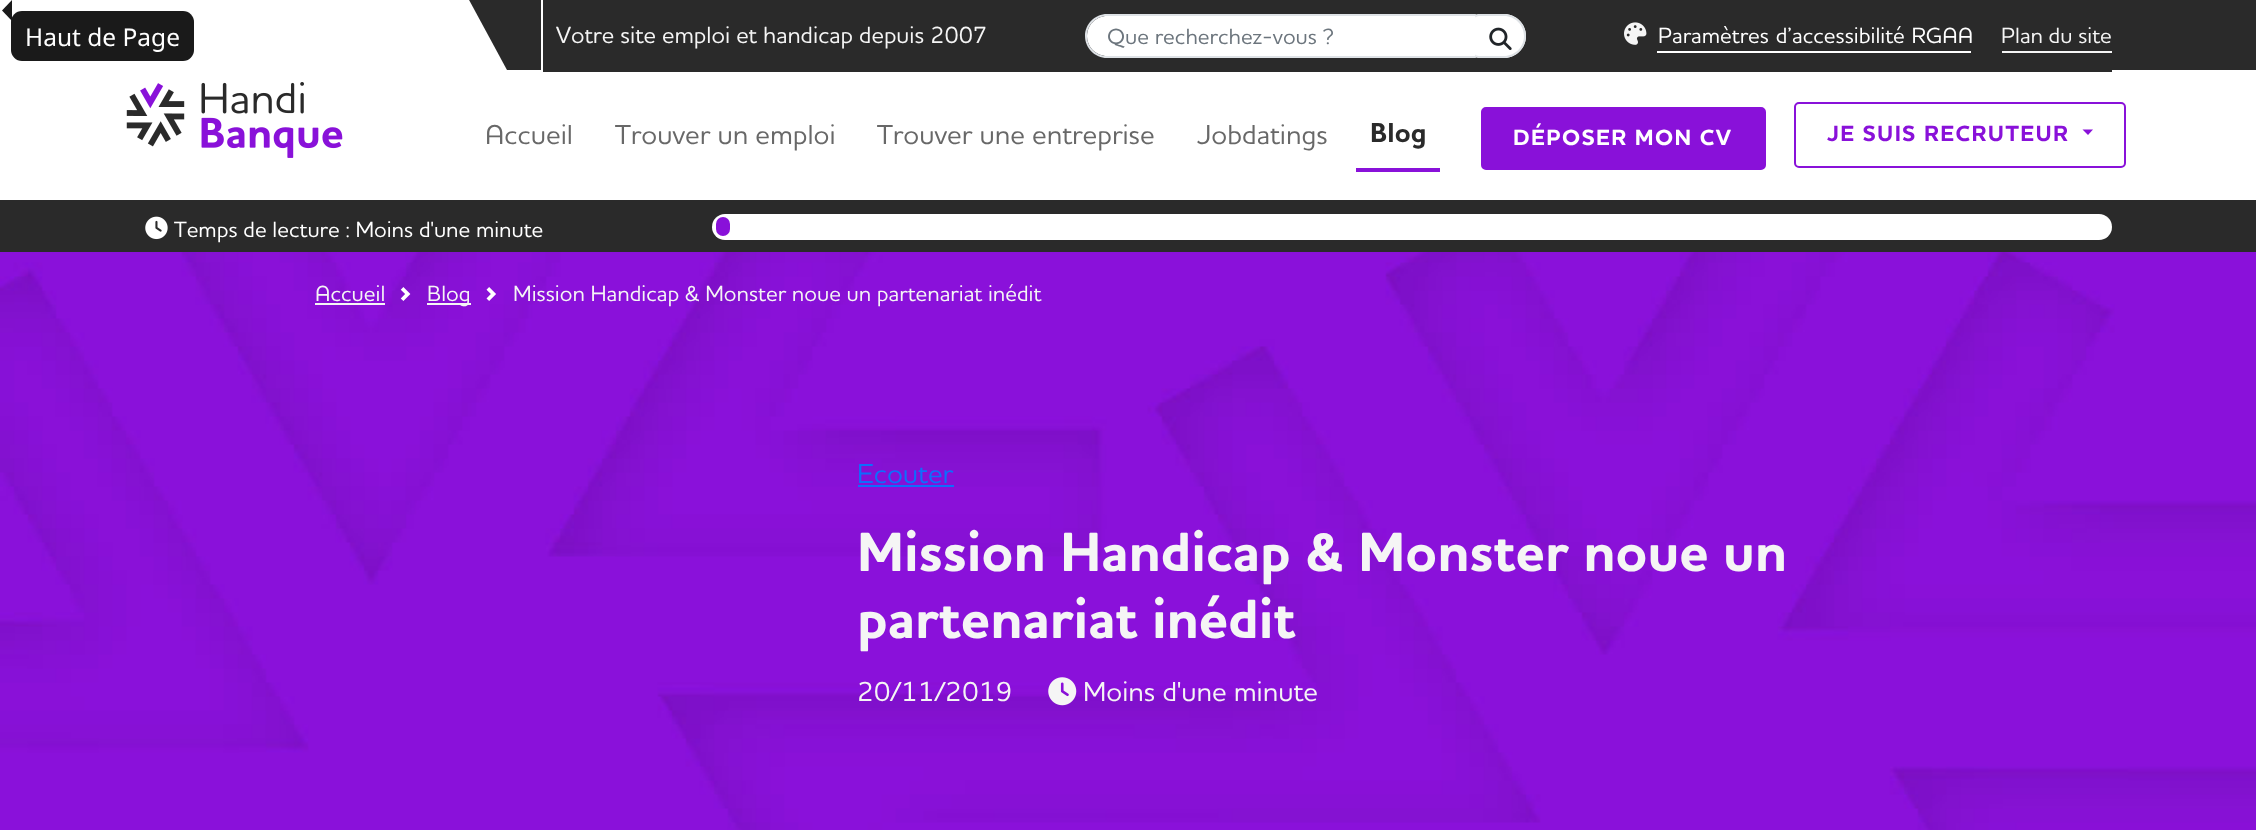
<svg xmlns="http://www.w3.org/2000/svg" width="2256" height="830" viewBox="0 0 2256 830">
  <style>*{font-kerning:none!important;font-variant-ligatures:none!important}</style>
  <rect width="100%" height="100%" fill="#fff"/>
  <rect x="11" y="11" width="183" height="50" rx="11" fill="#1a1a1a"/>
  <path d="M12 0V21L2 10.5Z" fill="#1a1a1a"/>
  <path d="M2112 0h144v70H2112z" fill="#2a2a2a"/>
  <path d="M541 70H507L468-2H541Z" fill="#2a2a2a"/>
  <path d="M543 0h1569v72H543z" fill="#2a2a2a"/>
  <path d="M1107 16H1475C1477 16 1479 17 1479 18V54C1479 55 1477 56 1475 56H1107C1096 56 1087 47 1087 36C1087 25 1096 16 1107 16Z" fill="#fff"/>
  <path d="M1107 14H1475C1477 14 1479 16 1479 18V54C1479 56 1477 58 1475 58H1107C1095 58 1085 48 1085 36C1085 24 1095 14 1107 14ZM1107 16H1475C1477 16 1479 17 1479 18V54C1479 55 1477 56 1475 56H1107C1096 56 1087 47 1087 36C1087 25 1096 16 1107 16Z" fill="#dee2e6" fill-rule="evenodd"/>
  <path d="M1479 14H1504C1516 14 1526 24 1526 36C1526 48 1516 58 1504 58H1479C1477 58 1475 56 1475 54V18C1475 16 1477 14 1479 14Z" fill="#fff"/>
  <path d="M1479 14H1504C1516 14 1526 24 1526 36C1526 48 1516 58 1504 58H1479C1477 58 1475 56 1475 54V18C1475 16 1477 14 1479 14ZM1479 16H1504C1515 16 1524 25 1524 36C1524 47 1515 56 1504 56H1479C1477 56 1475 55 1475 54V18C1475 17 1477 16 1479 16Z" fill="#dee2e6" fill-rule="evenodd"/>
  <image x="1489" y="27" width="23" height="23" href="img/1.png"/>
  <image x="1624" y="22" width="23" height="23" href="img/2.png"/>
  <path d="M1657 51h314v2H1657z" fill="#fff"/>
  <path d="M2002 51h110v2H2002z" fill="#f5f5f5"/>
  <image x="126" y="82" width="217" height="76" href="img/3.png"/>
  <path d="M1356 168h84v4H1356z" fill="#8911d9"/>
  <rect x="1482" y="108" width="283" height="61" rx="4" fill="#8911d9" stroke="#8911d9" stroke-width="2"/>
  <rect x="1795" y="103" width="330" height="64" rx="4" fill="none" stroke="#8911d9" stroke-width="2"/>
  <path d="M2082.5 129.5H2093L2088 135Z" fill="#8911d9"/>
  <path d="M0 200h2256v52H0z" fill="#2a2a2a"/>
  <image x="145" y="216" width="23" height="24" href="img/4.png"/>
  <rect x="712" y="214" width="1400" height="26" rx="13" fill="#fff"/>
  <rect x="716" y="217" width="14" height="19" rx="7" fill="#8911d9"/>
  <image x="0" y="252" width="2256" height="578" href="img/5.png"/>
  <path d="M315 303h70v2H315z" fill="#f5f5f5"/>
  <image x="400" y="287" width="11" height="14" href="img/6.png"/>
  <path d="M427 303h44v2H427z" fill="#f5f5f5"/>
  <image x="486" y="287" width="10" height="14" href="img/7.png"/>
  <path d="M858 485h96v2H858z" fill="#0d6efd"/>
  <image x="1048" y="677" width="29" height="29" href="img/8.png"/>
  <text x="25" y="46" font-family="Noto Sans" font-size="24.5" fill="#fff">Haut de Page</text>
  <text x="556" y="43" font-family="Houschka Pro" font-size="23.75" font-weight="500" fill="#f5f5f5">Votre site emploi et handicap depuis 2007</text>
  <text x="1107" y="44" font-family="Houschka Pro" font-size="22.4" font-weight="500" fill="#6c757d">Que recherchez-vous ?</text>
  <text x="1658" y="43" word-spacing="1" font-family="Houschka Pro" font-size="22.4" font-weight="500" fill="#fff">Paramètres d’accessibilité RGAA</text>
  <text x="2001" y="43" font-family="Houschka Pro" font-size="22.4" font-weight="500" fill="#f5f5f5">Plan du site</text>
  <g font-family="Houschka Pro" font-size="28" font-weight="500" fill="#686868">
    <text x="485" y="144">Accueil</text>
    <text x="615" y="144">Trouver un emploi</text>
    <text x="877" y="144">Trouver une entreprise</text>
    <text x="1197" y="144">Jobdatings</text>
  </g>
  <text x="1370" y="142" font-family="Houschka Pro" font-size="28" font-weight="bold" fill="#2a2a2a">Blog</text>
  <text x="1513" y="145" font-family="Houschka Pro" font-size="22.4" font-weight="bold" letter-spacing="1.4" fill="#fff">DÉPOSER MON CV</text>
  <text x="1827" y="141" font-family="Houschka Pro" font-size="22.4" font-weight="bold" letter-spacing="1.4" fill="#8911d9">JE SUIS RECRUTEUR</text>
  <text x="174" y="237" font-family="Houschka Pro" font-size="22.4" font-weight="500" fill="#fff">Temps de lecture : Moins d'une minute</text>
  <g font-family="Houschka Pro" font-size="22.4" font-weight="500" fill="#f5f5f5">
    <text x="315" y="301">Accueil</text>
    <text x="427" y="301">Blog</text>
    <text x="513" y="301">Mission Handicap &amp; Monster noue un partenariat inédit</text>
  </g>
  <text x="857" y="483" font-family="Houschka Pro" font-size="28" font-weight="500" fill="#0d6efd">Ecouter</text>
  <g font-family="Houschka Pro" font-size="56" font-weight="bold" fill="#f5f5f5">
    <text x="857" y="571">Mission Handicap &amp; Monster noue un</text>
    <text x="857" y="638">partenariat inédit</text>
  </g>
  <g font-family="Houschka Pro" font-size="28" font-weight="500" fill="#f5f5f5">
    <text x="857" y="701">20/11/2019</text>
    <text x="1083" y="701">Moins d'une minute</text>
  </g>
</svg>
